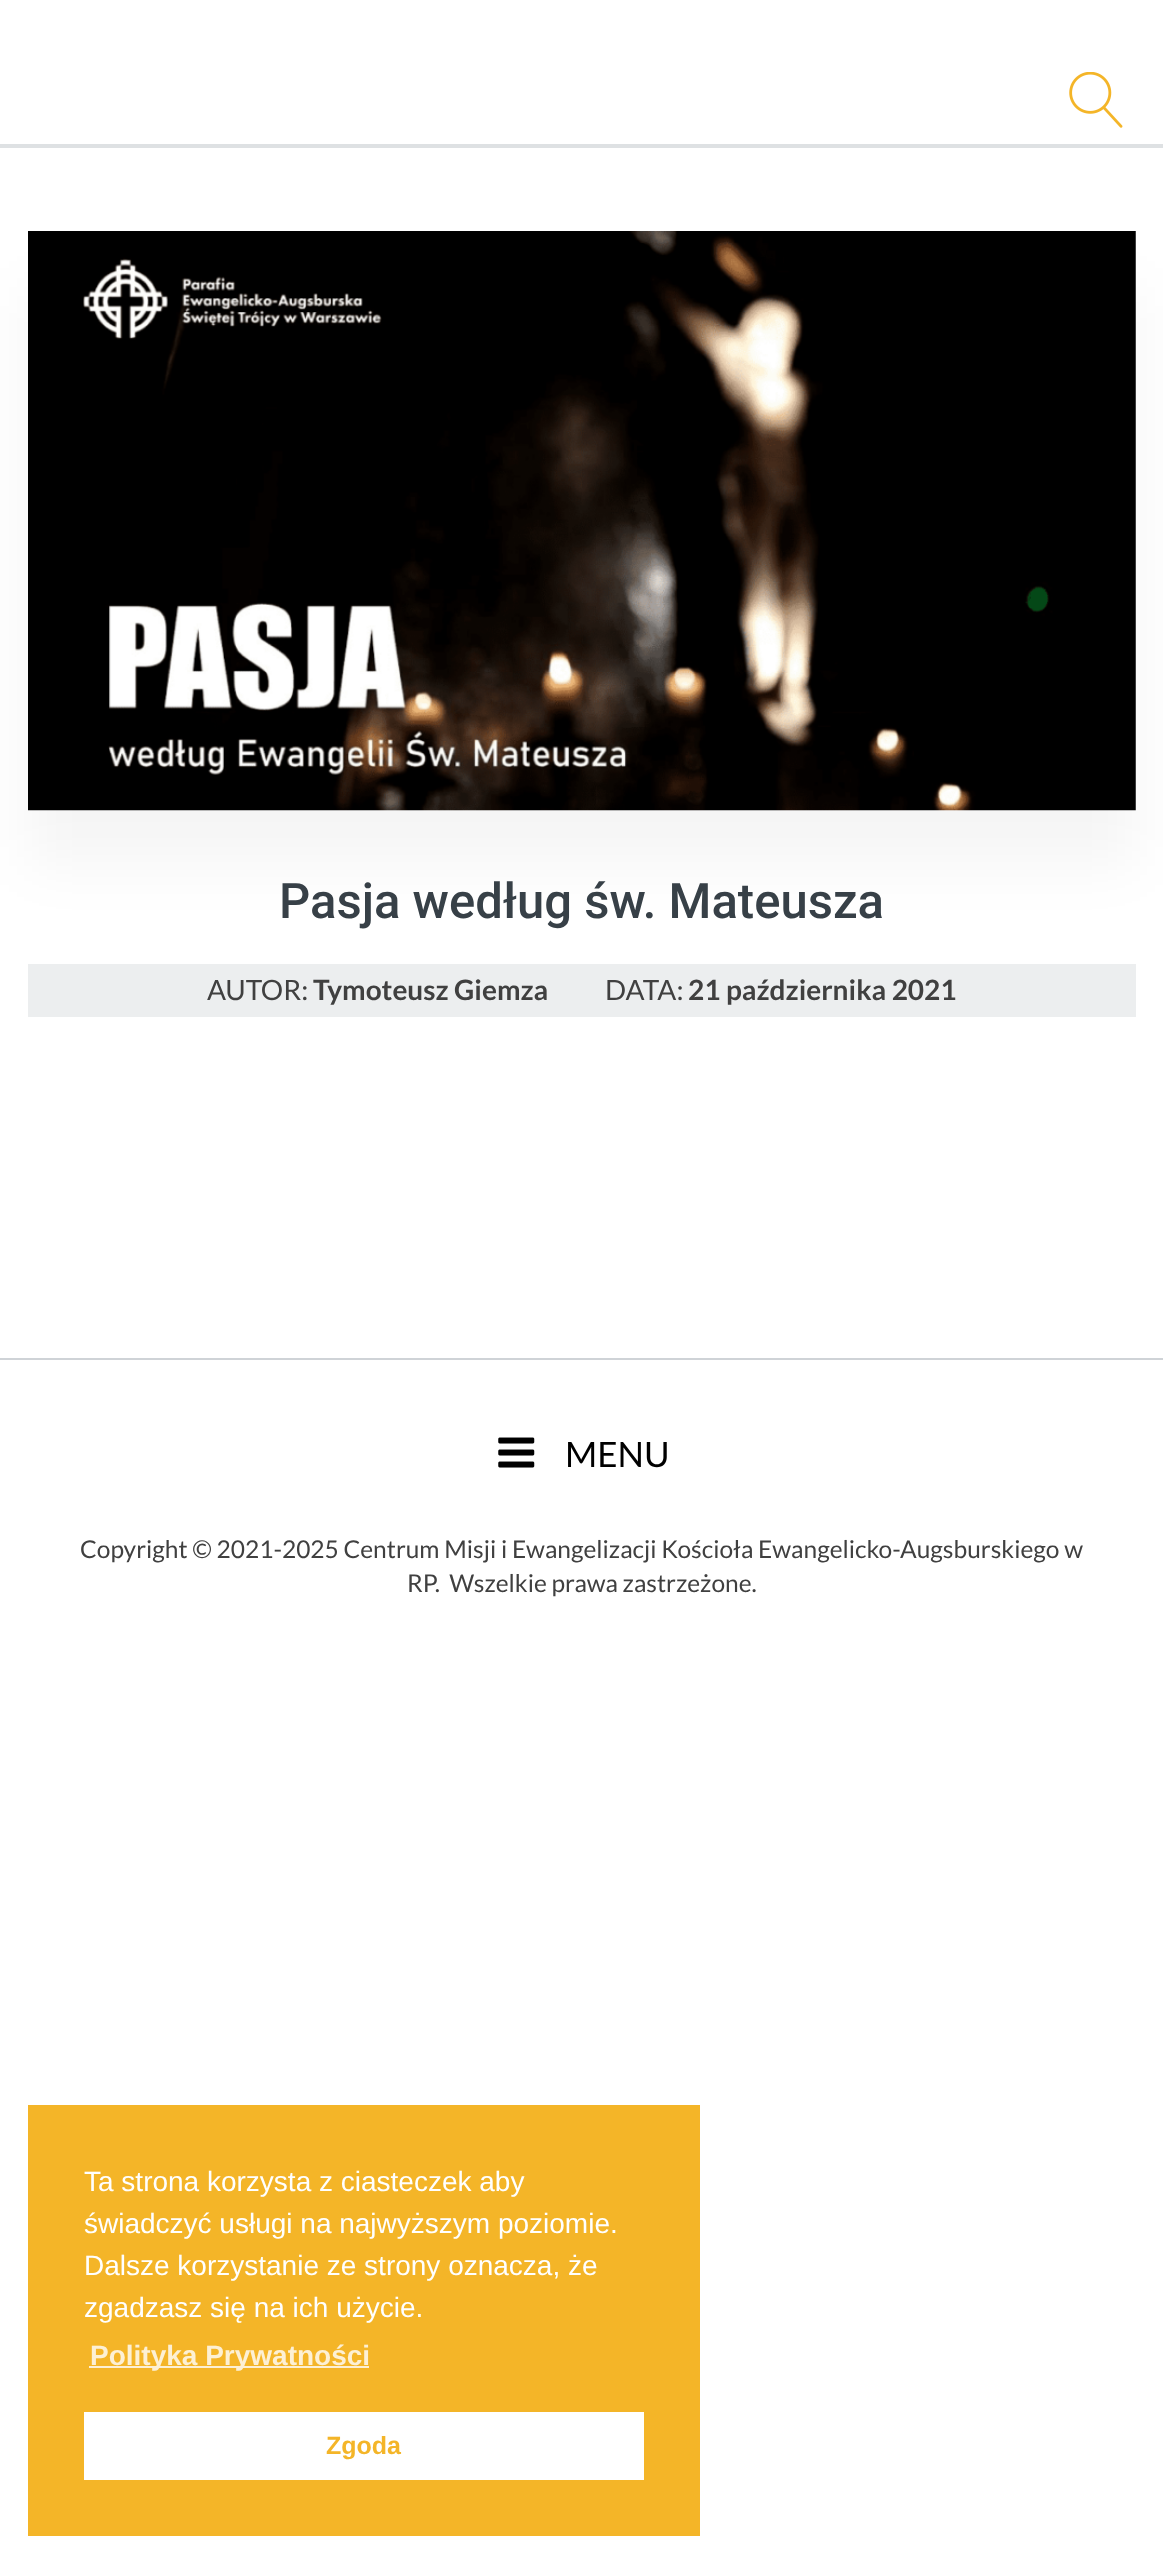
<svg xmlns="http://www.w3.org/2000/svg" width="1163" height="2563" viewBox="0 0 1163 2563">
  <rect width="100%" height="100%" fill="#fff"/>
  <image x="1069" y="72" width="54" height="56" href="img/1.png"/>
  <path d="M0 144h1163v4H0z" fill="#dee1e3"/>
  <path d="M28 287h1108v579H28z" fill="#0000000a" filter="blur(28px)"/>
  <image x="28" y="231" width="1108" height="580" href="img/2.png"/>
  <path d="M28 964h1108v53H28z" fill="#eceeef"/>
  <path d="M0 1358h1163v2H0z" fill="#cfd3d7"/>
  <image x="498" y="1437" width="37" height="31" href="img/3.png"/>
  <path d="M28 2105h672v431H28z" fill="#f4b528"/>
  <path d="M89 2366h280v2H89z" fill="#fdf0d4"/>
  <path d="M84 2412h560v68H84z" fill="#fff"/>
  <text x="279" y="918" font-family="Roboto" font-size="49" font-weight="500" fill="#374047">Pasja według św. Mateusza</text>
  <text x="207" y="1000" font-family="Lato" font-size="28" fill="#404040">AUTOR:</text>
  <text x="313" y="1000" font-family="Lato" font-size="28" font-weight="bold" fill="#404040">Tymoteusz Giemza</text>
  <text x="605" y="1000" font-family="Lato" font-size="28" fill="#404040">DATA:</text>
  <text x="688" y="1000" font-family="Lato" font-size="28" font-weight="bold" fill="#404040">21 października 2021</text>
  <text x="565" y="1467" font-family="Lato" font-size="35" fill="#000">MENU</text>
  <g font-family="Lato" font-size="24.5" fill="#404040">
    <text x="80" y="1558">Copyright © 2021-2025 Centrum Misji i Ewangelizacji Kościoła Ewangelicko-Augsburskiego w</text>
    <text x="407" y="1592" xml:space="preserve">RP.  Wszelkie prawa zastrzeżone.</text>
  </g>
  <g font-family="Liberation Sans" font-size="28" fill="#fff">
    <text x="84" y="2191">Ta strona korzysta z ciasteczek aby</text>
    <text x="84" y="2233">świadczyć usługi na najwyższym poziomie.</text>
    <text x="84" y="2275">Dalsze korzystanie ze strony oznacza, że</text>
    <text x="84" y="2317">zgadzasz się na ich użycie.</text>
  </g>
  <text x="90" y="2365" font-family="Liberation Sans" font-size="28" font-weight="bold" fill="#fdf0d4">Polityka Prywatności</text>
  <text x="326" y="2454" font-family="Liberation Sans" font-size="25" font-weight="bold" fill="#f4b528">Zgoda</text>
</svg>
